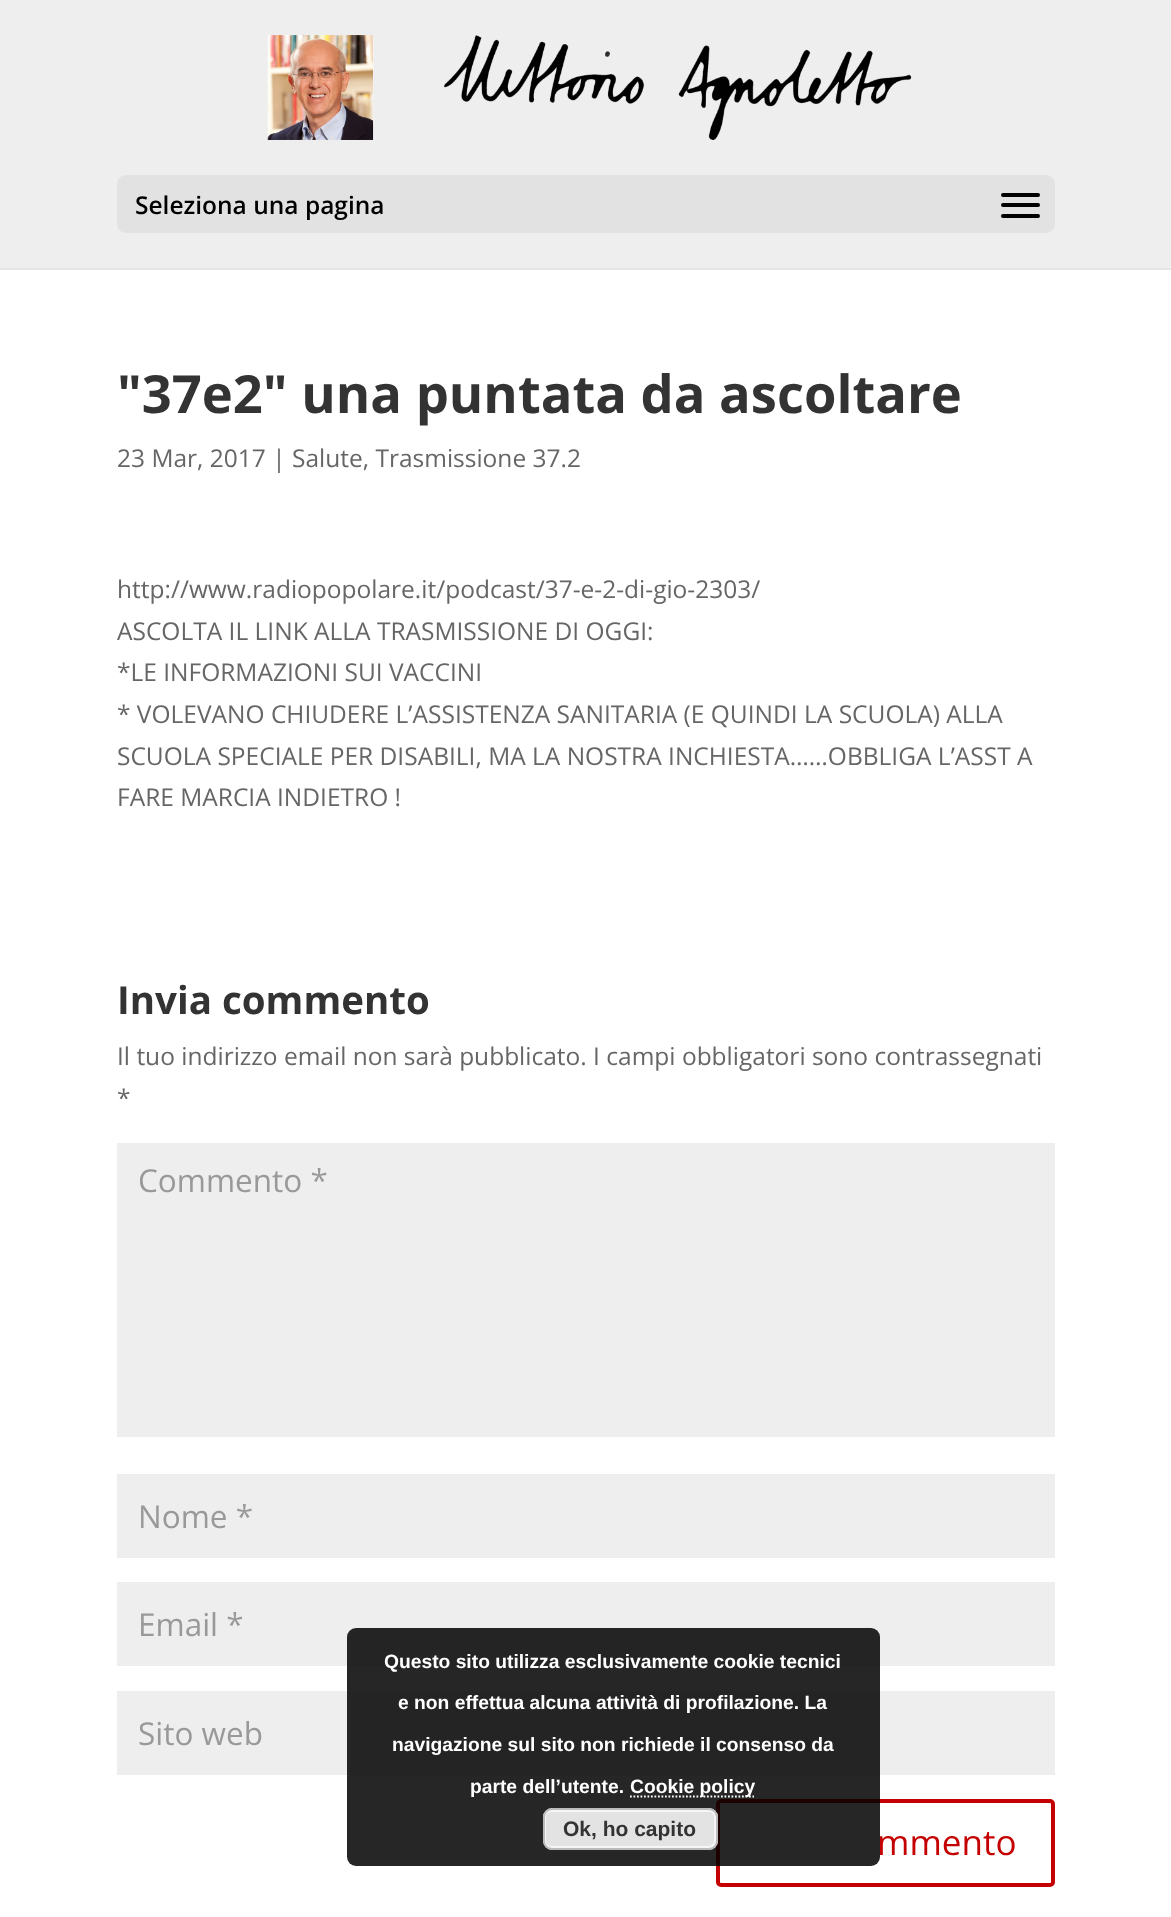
<svg xmlns="http://www.w3.org/2000/svg" width="1171" height="1917" viewBox="0 0 1171 1917">
  <rect width="100%" height="100%" fill="#fff"/>
  <path d="M0 268V270H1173V2H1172V268Z" fill="#e6e6e6"/>
  <path d="M0 0h1171v268H0z" fill="#eee"/>
  <image x="267" y="35" width="645" height="105" href="img/1.png"/>
  <rect x="117" y="175" width="938" height="58" rx="9" fill="#e2e2e2"/>
  <rect x="1001" y="193" width="39" height="4" rx="2" fill="#000"/>
  <rect x="1001" y="203" width="39" height="4" rx="2" fill="#000"/>
  <rect x="1001" y="214" width="39" height="4" rx="2" fill="#000"/>
  <path d="M117 1143h938v294H117z" fill="#eee"/>
  <path d="M117 1474h938v84H117z" fill="#eee"/>
  <path d="M117 1582h938v84H117z" fill="#eee"/>
  <path d="M117 1691h938v84H117z" fill="#eee"/>
  <rect x="718" y="1801" width="335" height="84" rx="3" fill="none" stroke="#c40000" stroke-width="4"/>
  <rect x="347" y="1628" width="533" height="238" rx="9" fill="#000000d9"/>
  <path d="M630 1796.5H754" fill="none" stroke="#fff" stroke-width="1.8" stroke-dasharray="1.75 1.75"/>
  <rect x="543" y="1808" width="175" height="42" rx="9" fill="#e3e3e3"/>
  <rect x="545" y="1811" width="170" height="36" rx="6" fill="none" stroke="#f6f6f6" stroke-width="2"/>
  <rect x="544" y="1809" width="173" height="40" rx="8" fill="none" stroke="#bbb" stroke-width="2"/>
  <text x="135" y="214" font-family="Open Sans" font-size="24.5" font-weight="600" fill="#000">Seleziona una pagina</text>
  <text x="117" y="413" font-family="Open Sans" font-size="52.5" font-weight="bold" fill="#333">"37e2" una puntata da ascoltare</text>
  <g font-family="Open Sans" font-size="24.5" fill="#666">
    <text x="117" y="467">23 Mar, 2017 | Salute, Trasmissione 37.2</text>
    <text x="117" y="598">http://www.radiopopolare.it/podcast/37-e-2-di-gio-2303/</text>
    <text x="117" y="640">ASCOLTA IL LINK ALLA TRASMISSIONE DI OGGI:</text>
    <text x="117" y="681">*LE INFORMAZIONI SUI VACCINI</text>
    <text x="117" y="723">* VOLEVANO CHIUDERE L’ASSISTENZA SANITARIA (E QUINDI LA SCUOLA) ALLA</text>
    <text x="117" y="765">SCUOLA SPECIALE PER DISABILI, MA LA NOSTRA INCHIESTA……OBBLIGA L’ASST A</text>
    <text x="117" y="806">FARE MARCIA INDIETRO !</text>
  </g>
  <text x="117" y="1014" font-family="Open Sans" font-size="38.5" font-weight="bold" fill="#333">Invia commento</text>
  <g font-family="Open Sans" font-size="24.5" fill="#666">
    <text x="117" y="1065">Il tuo indirizzo email non sarà pubblicato. I campi obbligatori sono contrassegnati</text>
    <text x="117" y="1107">*</text>
  </g>
  <g font-family="Open Sans" font-size="31.5" fill="#999">
    <text x="138" y="1192">Commento *</text>
    <text x="138" y="1528">Nome *</text>
    <text x="138" y="1636">Email *</text>
    <text x="138" y="1745">Sito web</text>
  </g>
  <text x="877" y="1855" font-family="Open Sans" font-size="35" fill="#c40000">mmento</text>
  <g font-family="Liberation Sans" font-size="19.25" font-weight="bold" fill="#fff">
    <text x="384" y="1668">Questo sito utilizza esclusivamente cookie tecnici</text>
    <text x="398" y="1709">e non effettua alcuna attività di profilazione. La</text>
    <text x="392" y="1751">navigazione sul sito non richiede il consenso da</text>
    <text x="470" y="1793">parte dell’utente.</text>
    <text x="630" y="1793">Cookie policy</text>
  </g>
  <text x="563" y="1836" font-family="Liberation Sans" font-size="21" font-weight="bold" fill="#333">Ok, ho capito</text>
</svg>
